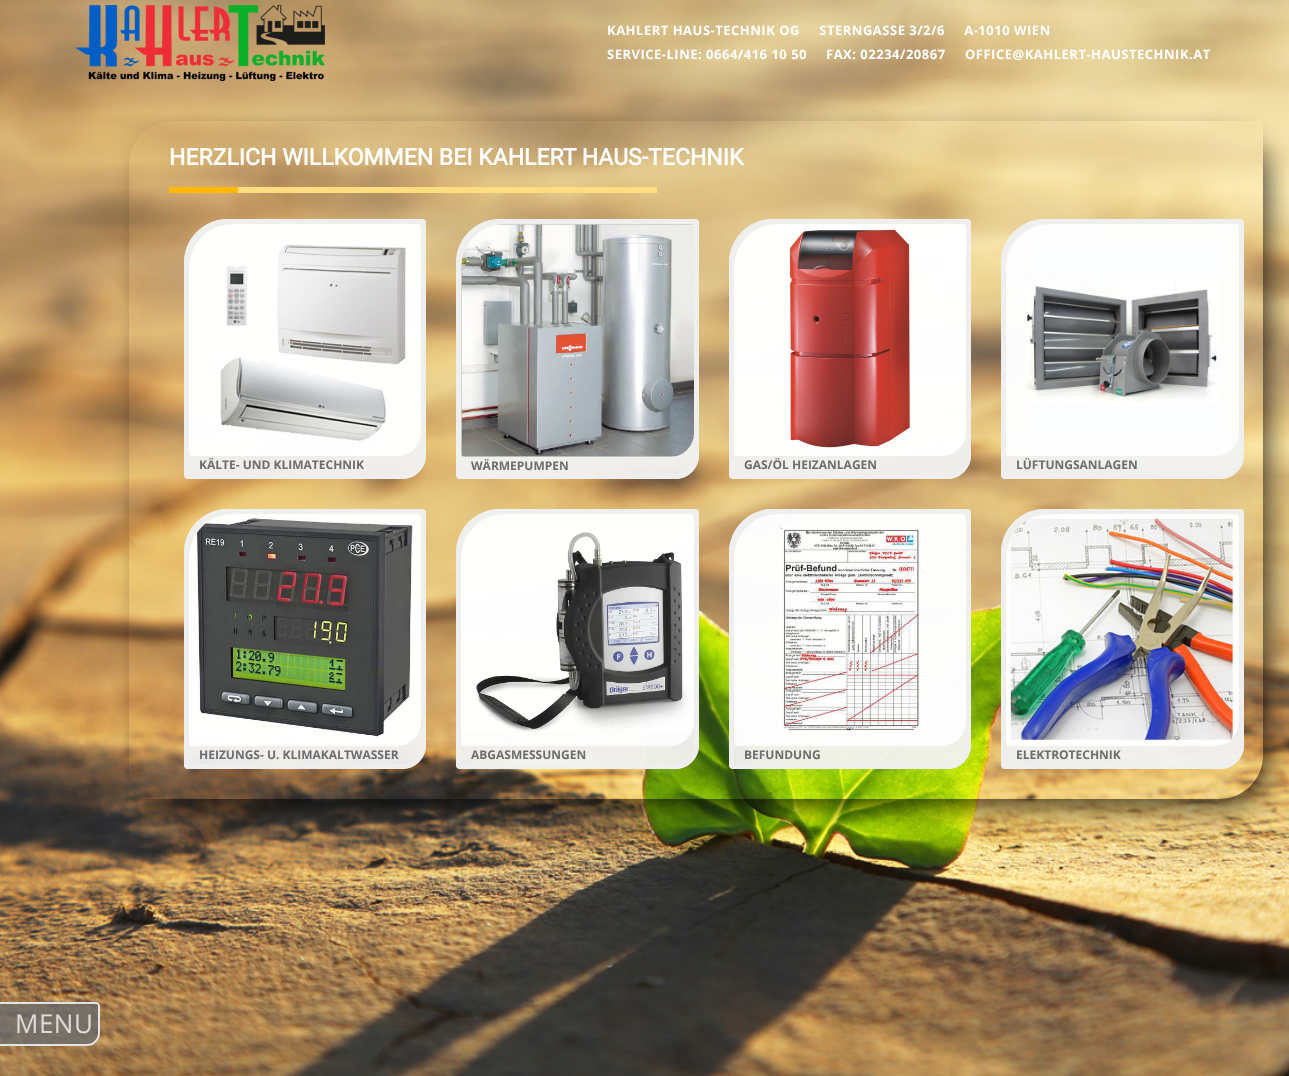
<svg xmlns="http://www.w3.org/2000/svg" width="1289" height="1076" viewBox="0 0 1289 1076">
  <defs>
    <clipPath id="clip1"><path d="M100 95H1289V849H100ZM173 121H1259C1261 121 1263 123 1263 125V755C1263 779.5 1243.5 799 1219 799H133C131 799 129 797 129 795V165C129 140.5 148.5 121 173 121Z" clip-rule="evenodd"/></clipPath>
  </defs>
  <rect width="100%" height="100%" fill="#fff"/>
  <image x="0" y="0" width="1289" height="1076" href="img/1.png"/>
  <image x="75" y="5" width="250" height="76" href="img/2.png"/>
  <g clip-path="url(#clip1)">
    <rect x="143" y="138" width="1124" height="668" rx="39" fill="#000000bf" filter="blur(14px)"/>
  </g>
  <path d="M238 187h419v6H238z" fill="#fedc80"/>
  <path d="M169 187h69v6H169z" fill="#fdb902"/>
  <path d="M228 219H422C424 219 426 221 426 223V455C426 468.5 415.5 479 402 479H188C186 479 184 477 184 475V263C184 238.5 203.5 219 228 219Z" fill="#f2f2f2f2"/>
  <path d="M228 221.5H422C423 221.5 423.5 222 423.5 223V455C423.5 467 414 476.5 402 476.5H188C187 476.5 186.5 476 186.5 475V263C186.5 240 205 221.5 228 221.5Z" fill="none" stroke="#eeeeeef2" stroke-width="5"/>
  <image x="189" y="224" width="232" height="232" href="img/3.png"/>
  <path d="M500 219H695C697 219 699 221 699 223V455C699 468.5 688.5 479 675 479H460C458 479 456 477 456 475V263C456 238.5 475.5 219 500 219Z" fill="#f2f2f2f2"/>
  <path d="M500 221.5H695C696 221.5 696.5 222 696.5 223V455C696.5 467 687 476.5 675 476.5H460C459 476.5 458.5 476 458.5 475V263C458.5 240 477 221.5 500 221.5Z" fill="none" stroke="#eeeeeef2" stroke-width="5"/>
  <image x="461" y="224" width="233" height="233" href="img/4.png"/>
  <path d="M773 219H967C969 219 971 221 971 223V455C971 468.5 960.5 479 947 479H733C731 479 729 477 729 475V263C729 238.5 748.5 219 773 219Z" fill="#f2f2f2f2"/>
  <path d="M773 221.5H967C968 221.5 968.5 222 968.5 223V455C968.5 467 959 476.5 947 476.5H733C732 476.5 731.5 476 731.5 475V263C731.5 240 750 221.5 773 221.5Z" fill="none" stroke="#eeeeeef2" stroke-width="5"/>
  <image x="734" y="224" width="232" height="232" href="img/5.png"/>
  <path d="M1045 219H1240C1242 219 1244 221 1244 223V455C1244 468.5 1233.5 479 1220 479H1005C1003 479 1001 477 1001 475V263C1001 238.5 1020.5 219 1045 219Z" fill="#f2f2f2f2"/>
  <path d="M1045 221.5H1240C1241 221.5 1241.5 222 1241.5 223V455C1241.5 467 1232 476.5 1220 476.5H1005C1004 476.5 1003.5 476 1003.5 475V263C1003.5 240 1022 221.5 1045 221.5Z" fill="none" stroke="#eeeeeef2" stroke-width="5"/>
  <image x="1006" y="224" width="233" height="232" href="img/6.png"/>
  <path d="M228 509H422C424 509 426 511 426 513V745C426 758.5 415.5 769 402 769H188C186 769 184 767 184 765V553C184 528.5 203.5 509 228 509Z" fill="#f2f2f2f2"/>
  <path d="M228 511.5H422C423 511.5 423.5 512 423.5 513V745C423.5 757 414 766.5 402 766.5H188C187 766.5 186.5 766 186.5 765V553C186.5 530 205 511.5 228 511.5Z" fill="none" stroke="#eeeeeef2" stroke-width="5"/>
  <image x="189" y="514" width="232" height="232" href="img/7.png"/>
  <path d="M500 509H695C697 509 699 511 699 513V745C699 758.5 688.5 769 675 769H460C458 769 456 767 456 765V553C456 528.5 475.5 509 500 509Z" fill="#f2f2f2f2"/>
  <path d="M500 511.5H695C696 511.5 696.5 512 696.5 513V745C696.5 757 687 766.5 675 766.5H460C459 766.5 458.5 766 458.5 765V553C458.5 530 477 511.5 500 511.5Z" fill="none" stroke="#eeeeeef2" stroke-width="5"/>
  <image x="461" y="514" width="233" height="232" href="img/8.png"/>
  <path d="M773 509H967C969 509 971 511 971 513V745C971 758.5 960.5 769 947 769H733C731 769 729 767 729 765V553C729 528.5 748.5 509 773 509Z" fill="#f2f2f2f2"/>
  <path d="M773 511.5H967C968 511.5 968.5 512 968.5 513V745C968.5 757 959 766.5 947 766.5H733C732 766.5 731.5 766 731.5 765V553C731.5 530 750 511.5 773 511.5Z" fill="none" stroke="#eeeeeef2" stroke-width="5"/>
  <image x="734" y="514" width="232" height="232" href="img/9.png"/>
  <path d="M1045 509H1240C1242 509 1244 511 1244 513V745C1244 758.5 1233.5 769 1220 769H1005C1003 769 1001 767 1001 765V553C1001 528.5 1020.5 509 1045 509Z" fill="#f2f2f2f2"/>
  <path d="M1045 511.5H1240C1241 511.5 1241.5 512 1241.5 513V745C1241.5 757 1232 766.5 1220 766.5H1005C1004 766.5 1003.5 766 1003.5 765V553C1003.5 530 1022 511.5 1045 511.5Z" fill="none" stroke="#eeeeeef2" stroke-width="5"/>
  <image x="1006" y="514" width="233" height="232" href="img/10.png"/>
  <path d="M0 1002H96C98 1002 100 1004 100 1006V1033C100 1040 94 1046 87 1046H-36C-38 1046-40 1044-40 1042C-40 1020-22 1002 0 1002Z" fill="#6d6c6ccf"/>
  <path d="M-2 1003H96C97.5 1003 99 1004.5 99 1006V1033C99 1039.5 93.5 1045 87 1045H-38C-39.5 1045-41 1043.5-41 1042C-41 1020.5-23.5 1003-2 1003Z" fill="none" stroke="#ffffffcf" stroke-width="2"/>
  <g font-family="Open Sans" font-size="13" font-weight="bold" letter-spacing="0.5" fill="#fff">
    <text x="607" y="35" xml:space="preserve">KAHLERT HAUS-TECHNIK OG     STERNGASSE 3/2/6     A-1010 WIEN</text>
    <text x="607" y="59">SERVICE-LINE: 0664/416 10 50</text>
    <text x="826" y="59">FAX: 02234/20867</text>
    <text x="965" y="59">OFFICE@KAHLERT-HAUSTECHNIK.AT</text>
  </g>
  <text x="169" y="165" font-family="Roboto" font-size="23" font-weight="bold" fill="#fff">HERZLICH WILLKOMMEN BEI KAHLERT HAUS-TECHNIK</text>
  <g font-family="Open Sans" font-size="12" font-weight="bold" fill="#6d6d6d">
    <text x="199" y="469">KÄLTE- UND KLIMATECHNIK</text>
    <text x="471" y="470">WÄRMEPUMPEN</text>
    <text x="744" y="469">GAS/ÖL HEIZANLAGEN</text>
    <text x="1016" y="469">LÜFTUNGSANLAGEN</text>
    <text x="199" y="759">HEIZUNGS- U. KLIMAKALTWASSER</text>
    <text x="471" y="759">ABGASMESSUNGEN</text>
    <text x="744" y="759">BEFUNDUNG</text>
    <text x="1016" y="759">ELEKTROTECHNIK</text>
  </g>
  <text x="15" y="1033" font-family="Open Sans" font-size="26" letter-spacing="0.5" fill="#e0dbd9">MENU</text>
</svg>
